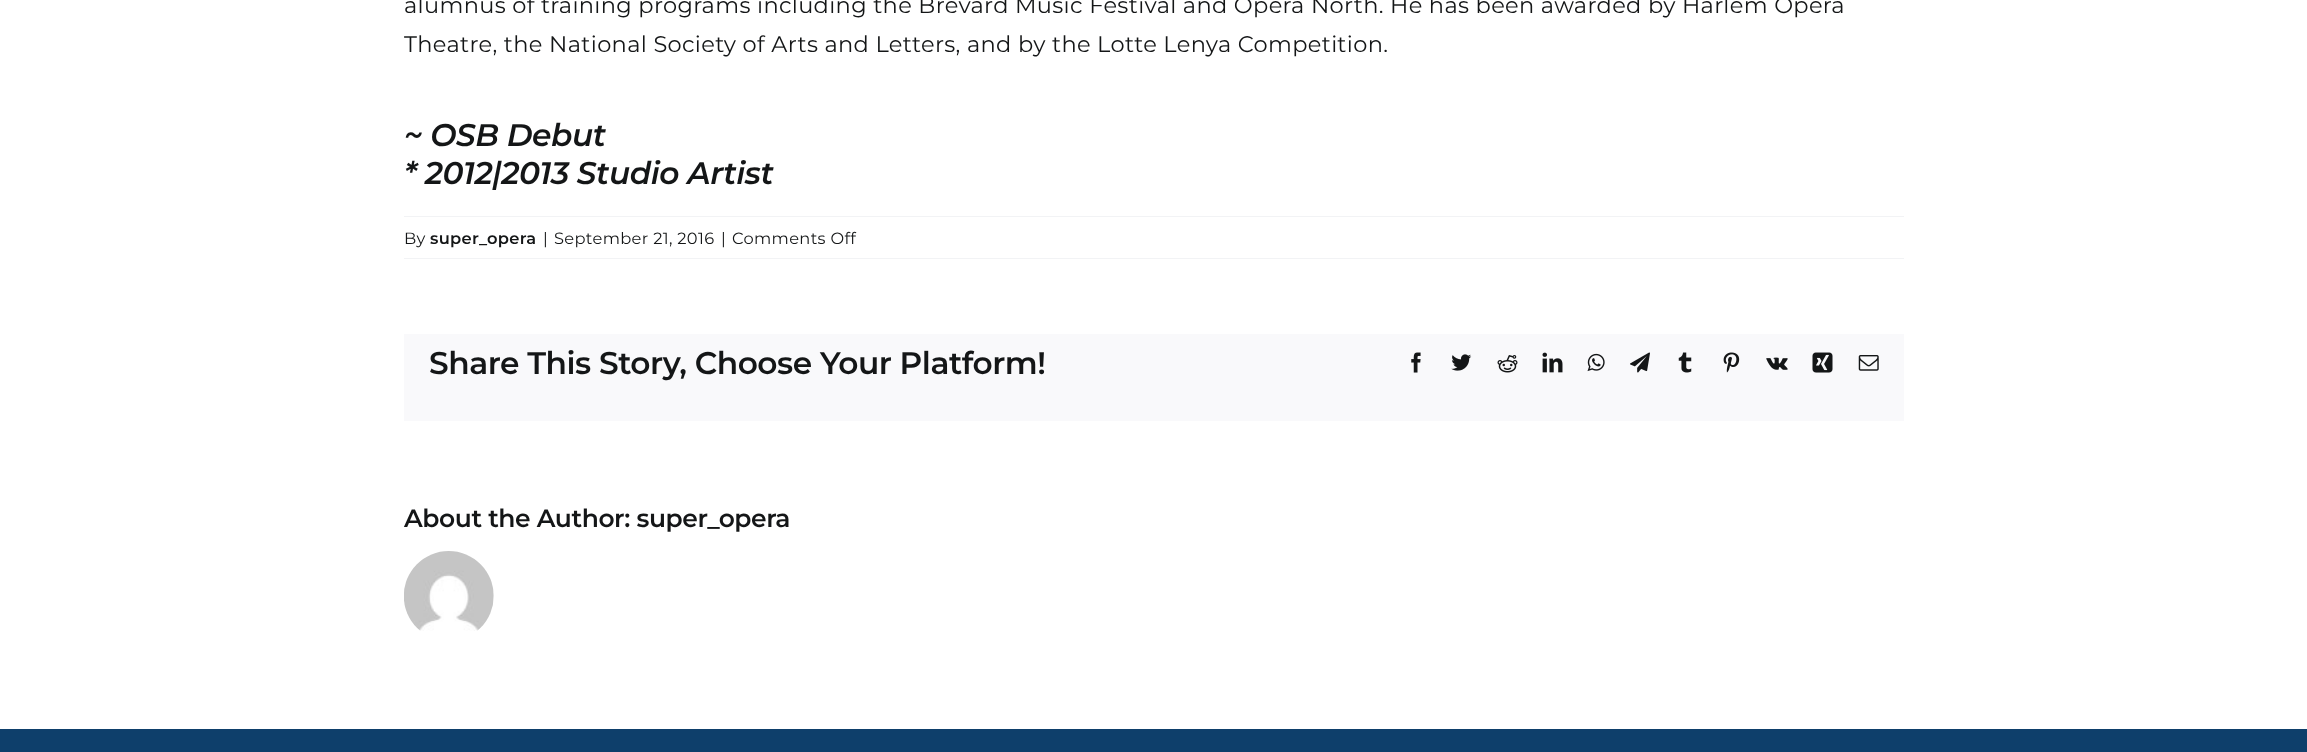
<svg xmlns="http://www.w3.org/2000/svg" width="2307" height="752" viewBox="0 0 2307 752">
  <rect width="100%" height="100%" fill="#fff"/>
  <path d="M404 216h1500v1H404z" fill="#f2f3f5"/>
  <path d="M404 258h1500v1H404z" fill="#f2f3f5"/>
  <path d="M404 334h1500v87H404z" fill="#f9f9fb"/>
  <image x="1411" y="352" width="10" height="21" href="img/1.png"/>
  <image x="1451" y="354" width="21" height="17" href="img/2.png"/>
  <image x="1497" y="355" width="21" height="18" href="img/3.png"/>
  <image x="1542" y="352" width="21" height="21" href="img/4.png"/>
  <image x="1587" y="353" width="18" height="19" href="img/5.png"/>
  <image x="1630" y="352" width="20" height="21" href="img/6.png"/>
  <image x="1678" y="352" width="14" height="21" href="img/7.png"/>
  <image x="1723" y="352" width="17" height="21" href="img/8.png"/>
  <image x="1766" y="357" width="22" height="13" href="img/9.png"/>
  <image x="1812" y="352" width="21" height="21" href="img/10.png"/>
  <image x="1858" y="355" width="21" height="16" href="img/11.png"/>
  <image x="404" y="551" width="90" height="80" href="img/12.png"/>
  <path d="M0 729h2307v23H0z" fill="#0e3f6b"/>
  <g font-family="Montserrat" font-size="22.5" letter-spacing="0.34" fill="#141617">
    <text x="404" y="13">alumnus of training programs including the Brevard Music Festival and Opera North. He has been awarded by Harlem Opera</text>
    <text x="404" y="52">Theatre, the National Society of Arts and Letters, and by the Lotte Lenya Competition.</text>
  </g>
  <g font-family="Montserrat" font-size="31.25" font-weight="600" font-style="italic" letter-spacing="-0.45" fill="#141617">
    <text x="404" y="146">~ OSB Debut</text>
    <text x="404" y="184">* 2012|2013 Studio Artist</text>
  </g>
  <text x="404" y="244" font-family="Montserrat" font-size="16.25" letter-spacing="0.34" fill="#141617">By</text>
  <text x="430" y="244" font-family="Montserrat" font-size="16.25" font-weight="600" letter-spacing="0.34" fill="#141617">super_opera</text>
  <g font-family="Montserrat" font-size="16.25" letter-spacing="0.34" fill="#141617">
    <text x="543" y="244">|</text>
    <text x="554" y="244">September 21, 2016</text>
    <text x="721" y="244">|</text>
    <text x="732" y="244">Comments Off</text>
  </g>
  <text x="429" y="374" font-family="Montserrat" font-size="31.25" font-weight="600" letter-spacing="-0.45" fill="#141617">Share This Story, Choose Your Platform!</text>
  <text x="404" y="527" font-family="Montserrat" font-size="25" font-weight="600" letter-spacing="-0.4" fill="#141617">About the Author: super_opera</text>
</svg>
